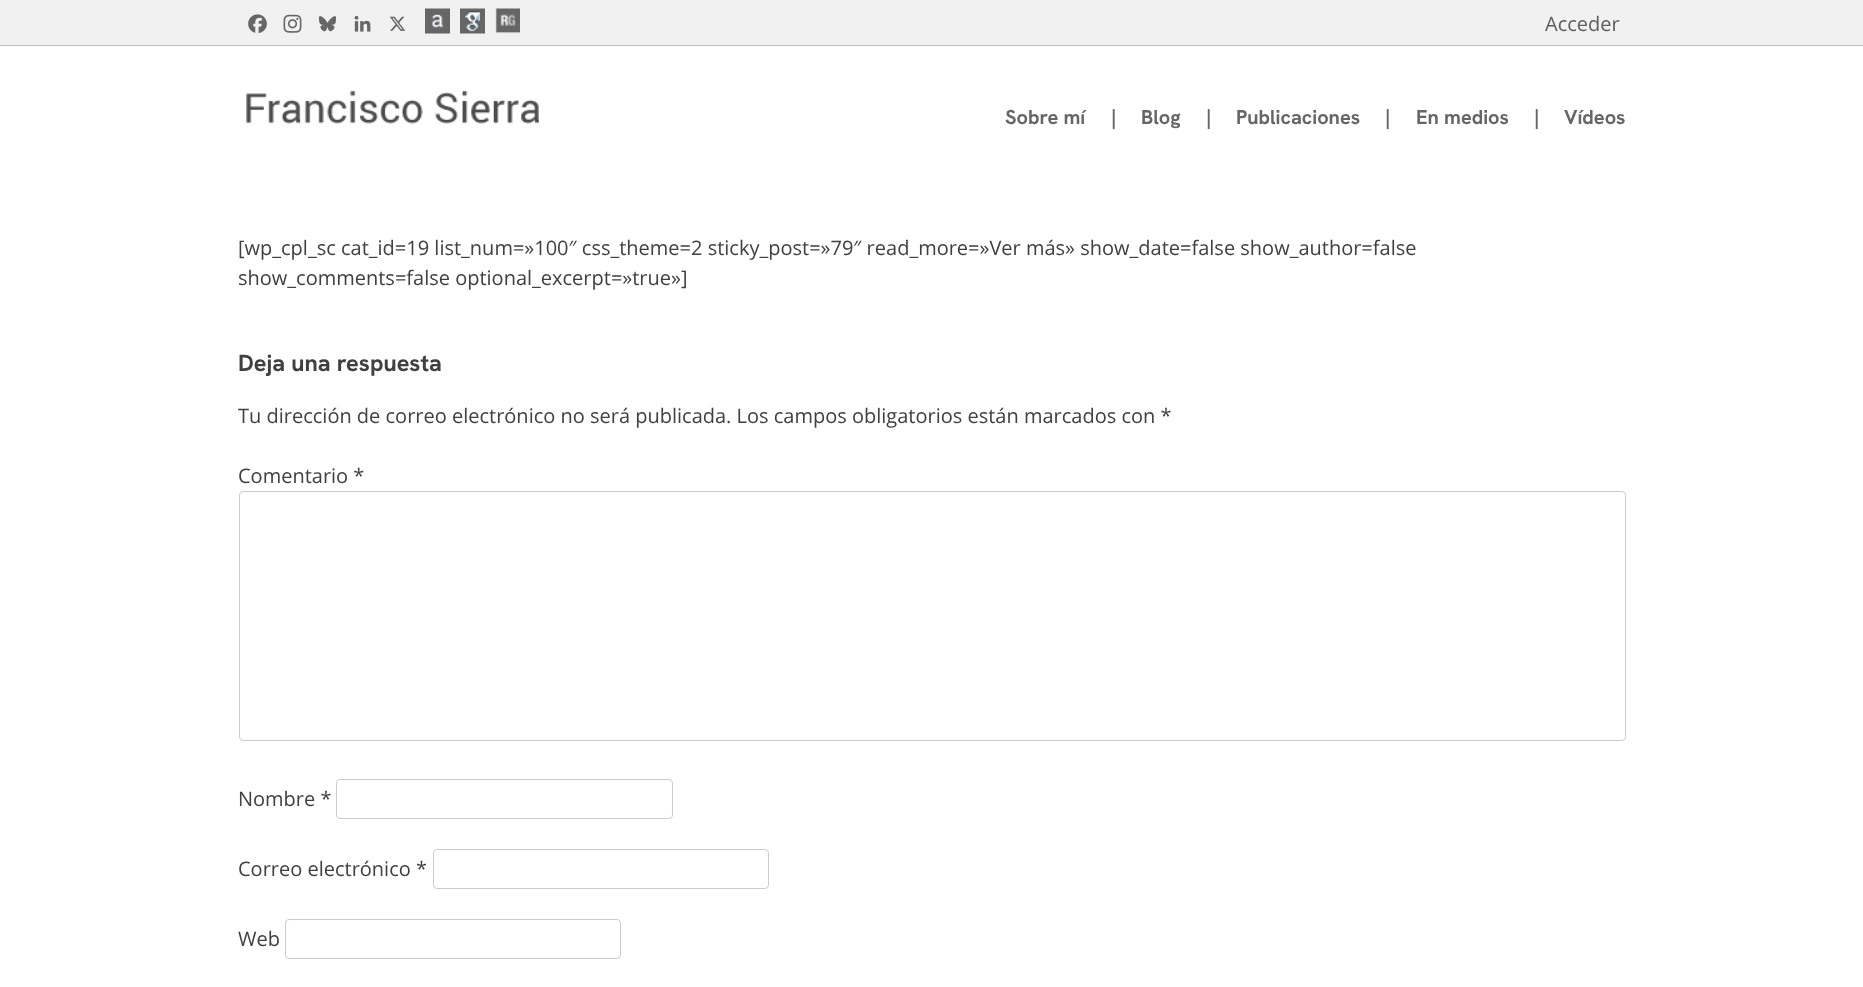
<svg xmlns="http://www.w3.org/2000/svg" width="1863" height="987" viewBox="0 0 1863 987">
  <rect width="100%" height="100%" fill="#fff"/>
  <path d="M0 0h1863v45H0z" fill="#f1f1f1"/>
  <path d="M0 45h1863v1H0z" fill="#bebebe"/>
  <image x="248" y="14" width="19" height="19" href="img/1.png"/>
  <image x="283" y="14" width="19" height="19" href="img/2.png"/>
  <image x="318" y="16" width="19" height="16" href="img/3.png"/>
  <image x="354" y="15" width="17" height="17" href="img/4.png"/>
  <image x="389" y="16" width="17" height="15" href="img/5.png"/>
  <image x="425" y="8" width="25" height="26" href="img/6.png"/>
  <image x="460" y="8" width="25" height="26" href="img/7.png"/>
  <image x="495" y="8" width="25" height="26" href="img/8.png"/>
  <image x="246" y="90" width="294" height="34" href="img/9.png"/>
  <rect x="239.5" y="491.5" width="1386" height="249" rx="3.5" fill="none" stroke="#ccc"/>
  <rect x="336.5" y="779.5" width="336" height="39" rx="3.5" fill="none" stroke="#ccc"/>
  <rect x="433.5" y="849.5" width="335" height="39" rx="3.5" fill="none" stroke="#ccc"/>
  <rect x="285.5" y="919.5" width="335" height="39" rx="3.5" fill="none" stroke="#ccc"/>
  <text x="1545" y="31" font-family="Open Sans" font-size="20" fill="#5d5d5d">Acceder</text>
  <g font-family="Hanken Grotesk" font-size="20" font-weight="bold" fill="#666">
    <text x="1005" y="124">Sobre mí</text>
    <text x="1111" y="124">|</text>
    <text x="1141" y="124">Blog</text>
    <text x="1206" y="124">|</text>
    <text x="1236" y="124">Publicaciones</text>
    <text x="1385" y="124">|</text>
    <text x="1416" y="124">En medios</text>
    <text x="1534" y="124">|</text>
    <text x="1564" y="124">Vídeos</text>
  </g>
  <g font-family="Open Sans" font-size="20" fill="#404040">
    <text x="238" y="255">[wp_cpl_sc cat_id=19 list_num=»100″ css_theme=2 sticky_post=»79″ read_more=»Ver más» show_date=false show_author=false</text>
    <text x="238" y="285">show_comments=false optional_excerpt=»true»]</text>
  </g>
  <text x="238" y="371" font-family="Hanken Grotesk" font-size="23.5" font-weight="bold" fill="#404040">Deja una respuesta</text>
  <g font-family="Open Sans" font-size="20" fill="#404040">
    <text x="238" y="423">Tu dirección de correo electrónico no será publicada. Los campos obligatorios están marcados con *</text>
    <text x="238" y="483">Comentario *</text>
    <text x="238" y="806">Nombre *</text>
    <text x="238" y="876">Correo electrónico *</text>
    <text x="238" y="946">Web</text>
  </g>
</svg>
